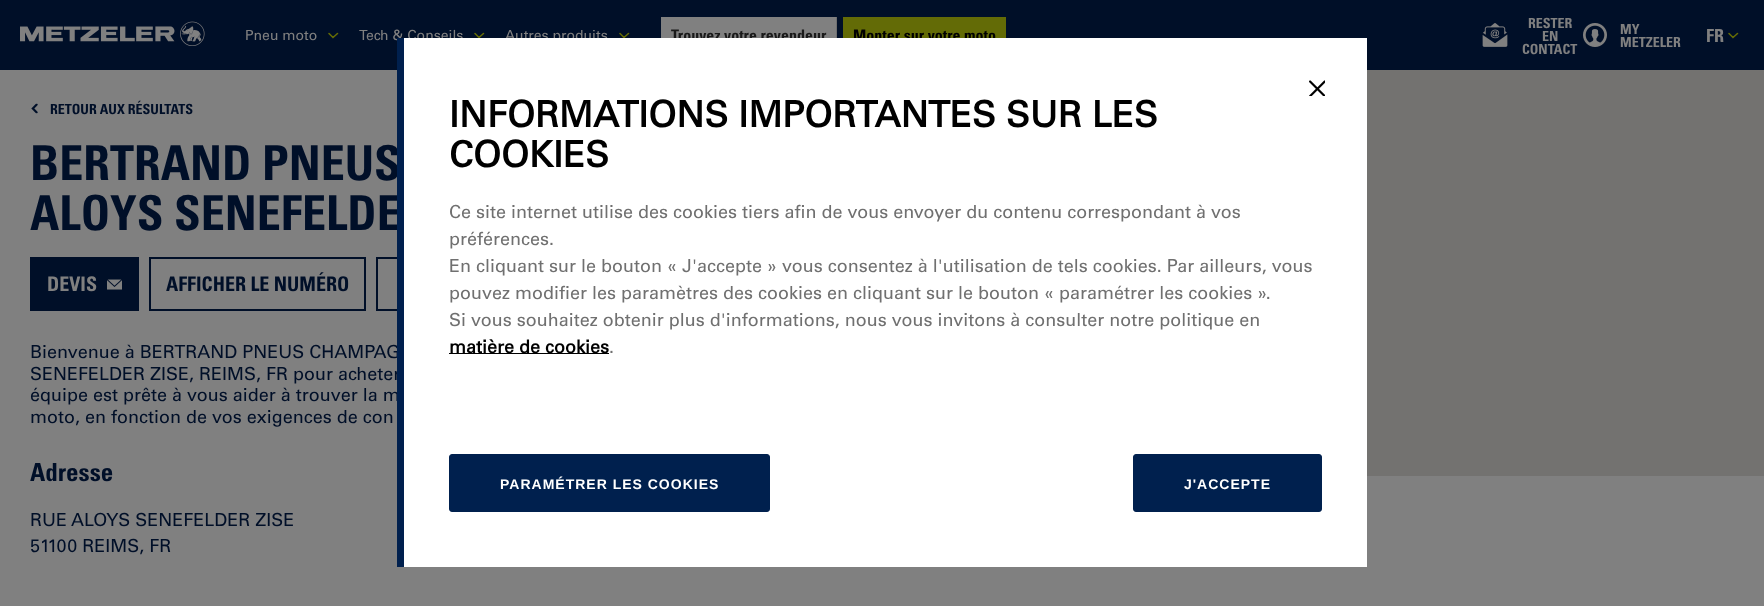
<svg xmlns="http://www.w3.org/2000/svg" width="1764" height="606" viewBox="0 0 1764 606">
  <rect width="100%" height="100%" fill="#808080"/>
  <path d="M0 0h1764v70H0z" fill="#000f28"/>
  <image x="20" y="21" width="185" height="25" href="img/1.png"/>
  <path d="M329 33.5L333 37.5L337.5 33.5" fill="none" stroke="#636b06" stroke-width="1.6" stroke-linecap="round"/>
  <path d="M475 33.5L479 37.5L483.5 33.5" fill="none" stroke="#636b06" stroke-width="1.6" stroke-linecap="round"/>
  <path d="M620 33.5L624 37.5L628.5 33.5" fill="none" stroke="#636b06" stroke-width="1.6" stroke-linecap="round"/>
  <path d="M661 17h175v21H661z" fill="#808080"/>
  <path d="M836 17h1v21H836z" fill="#6f6f6f"/>
  <path d="M843 17h163v21H843z" fill="#636b06"/>
  <image x="1482" y="23" width="26" height="24" href="img/2.png"/>
  <image x="1583" y="23" width="24" height="24" href="img/3.png"/>
  <path d="M1729 33.5L1733 37.5L1737.5 33.5" fill="none" stroke="#636b06" stroke-width="1.6" stroke-linecap="round"/>
  <image x="31" y="103" width="7" height="11" href="img/4.png"/>
  <path d="M30 257h109v54H30z" fill="#000f28"/>
  <image x="107" y="279" width="15" height="11" href="img/5.png"/>
  <path d="M150 258h215v52H150z" fill="none" stroke="#000f28" stroke-width="2"/>
  <path d="M377 258h135v52H377z" fill="none" stroke="#000f28" stroke-width="2"/>
  <path d="M1367 70h397v406H1367z" fill="#737270"/>
  <g font-family="'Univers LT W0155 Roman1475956'" font-size="14" fill="#808080">
    <text x="245" y="40">Pneu moto</text>
    <text x="359" y="40">Tech &amp; Conseils</text>
    <text x="505" y="40">Autres produits</text>
  </g>
  <text x="671" y="41" font-family="'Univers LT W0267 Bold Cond'" font-size="16" font-weight="bold" fill="#1a1a1a">Trouvez votre revendeur</text>
  <text x="853" y="41" font-family="'Univers LT W0267 Bold Cond'" font-size="16" font-weight="bold" fill="#000">Monter sur votre moto</text>
  <g font-family="'Univers LT W0267 Bold Cond'" font-size="14" font-weight="bold" fill="#808080">
    <text x="1528" y="28">RESTER</text>
    <text x="1542" y="41">EN</text>
    <text x="1522" y="54">CONTACT</text>
    <text x="1620" y="34">MY</text>
    <text x="1620" y="47">METZELER</text>
  </g>
  <text x="1706" y="42" font-family="'Univers LT W0267 Bold Cond'" font-size="18" font-weight="bold" fill="#808080">FR</text>
  <text x="50" y="114" font-family="'Univers LT W0267 Bold Cond'" font-size="14" font-weight="bold" fill="#000f28">RETOUR AUX RÉSULTATS</text>
  <g font-family="'Univers LT W0267 Bold Cond'" font-size="48" font-weight="bold" fill="#000f28">
    <text x="30" y="180">BERTRAND PNEUS</text>
    <text x="30" y="230">ALOYS SENEFELDE</text>
  </g>
  <text x="47" y="291" font-family="'Univers LT W0267 Bold Cond'" font-size="20" font-weight="bold" fill="#808080">DEVIS</text>
  <text x="166" y="291" font-family="'Univers LT W0267 Bold Cond'" font-size="20" font-weight="bold" fill="#000f28">AFFICHER LE NUMÉRO</text>
  <g font-family="'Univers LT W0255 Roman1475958'" font-size="18" fill="#000f28">
    <text x="30" y="358">Bienvenue à BERTRAND PNEUS CHAMPAG</text>
    <text x="30" y="380">SENEFELDER ZISE, REIMS, FR pour acheter</text>
    <text x="30" y="401">équipe est prête à vous aider à trouver la m</text>
    <text x="30" y="423">moto, en fonction de vos exigences de con</text>
  </g>
  <text x="30" y="481" font-family="'Univers LT W0267 Bold Cond'" font-size="25" font-weight="bold" fill="#000f28">Adresse</text>
  <g font-family="'Univers LT W0255 Roman1475958'" font-size="18" fill="#000f28">
    <text x="30" y="526">RUE ALOYS SENEFELDER ZISE</text>
    <text x="30" y="552">51100 REIMS, FR</text>
  </g>
  <path d="M404 38h963v529H404z" fill="#fff"/>
  <path d="M397 38h7v529H397z" fill="#00204e"/>
  <image x="1309" y="80" width="16" height="16" href="img/6.png"/>
  <g font-family="'Univers LT W0255 Roman1475958'" font-size="36" font-weight="bold" fill="#000">
    <text x="449" y="127">INFORMATIONS IMPORTANTES SUR LES</text>
    <text x="449" y="167">COOKIES</text>
  </g>
  <g font-family="'Univers LT W0255 Roman1475958'" font-size="18" fill="#707070">
    <text x="449" y="218">Ce site internet utilise des cookies tiers afin de vous envoyer du contenu correspondant à vos</text>
    <text x="449" y="245">préférences.</text>
    <text x="449" y="272">En cliquant sur le bouton « J'accepte » vous consentez à l'utilisation de tels cookies. Par ailleurs, vous</text>
    <text x="449" y="299">pouvez modifier les paramètres des cookies en cliquant sur le bouton « paramétrer les cookies ».</text>
    <text x="449" y="326">Si vous souhaitez obtenir plus d'informations, nous vous invitons à consulter notre politique en</text>
  </g>
  <path d="M449 353h160v1H449z" fill="#000"/>
  <text x="449" y="353" font-family="'Univers LT W0255 Roman1475958'" font-size="18" font-weight="bold" fill="#000">matière de cookies</text>
  <text x="609" y="353" font-family="'Univers LT W0255 Roman1475958'" font-size="18" fill="#707070">.</text>
  <rect x="449.5" y="454.5" width="320" height="57" rx="2.5" fill="#00204e" stroke="#00204e"/>
  <text x="500" y="489" font-family="Liberation Sans" font-size="14" font-weight="bold" letter-spacing="1" fill="#fff">PARAMÉTRER LES COOKIES</text>
  <rect x="1133.5" y="454.5" width="188" height="57" rx="2.5" fill="#00204e" stroke="#00204e"/>
  <text x="1184" y="489" font-family="Liberation Sans" font-size="14" font-weight="bold" letter-spacing="1" fill="#fff">J'ACCEPTE</text>
</svg>
